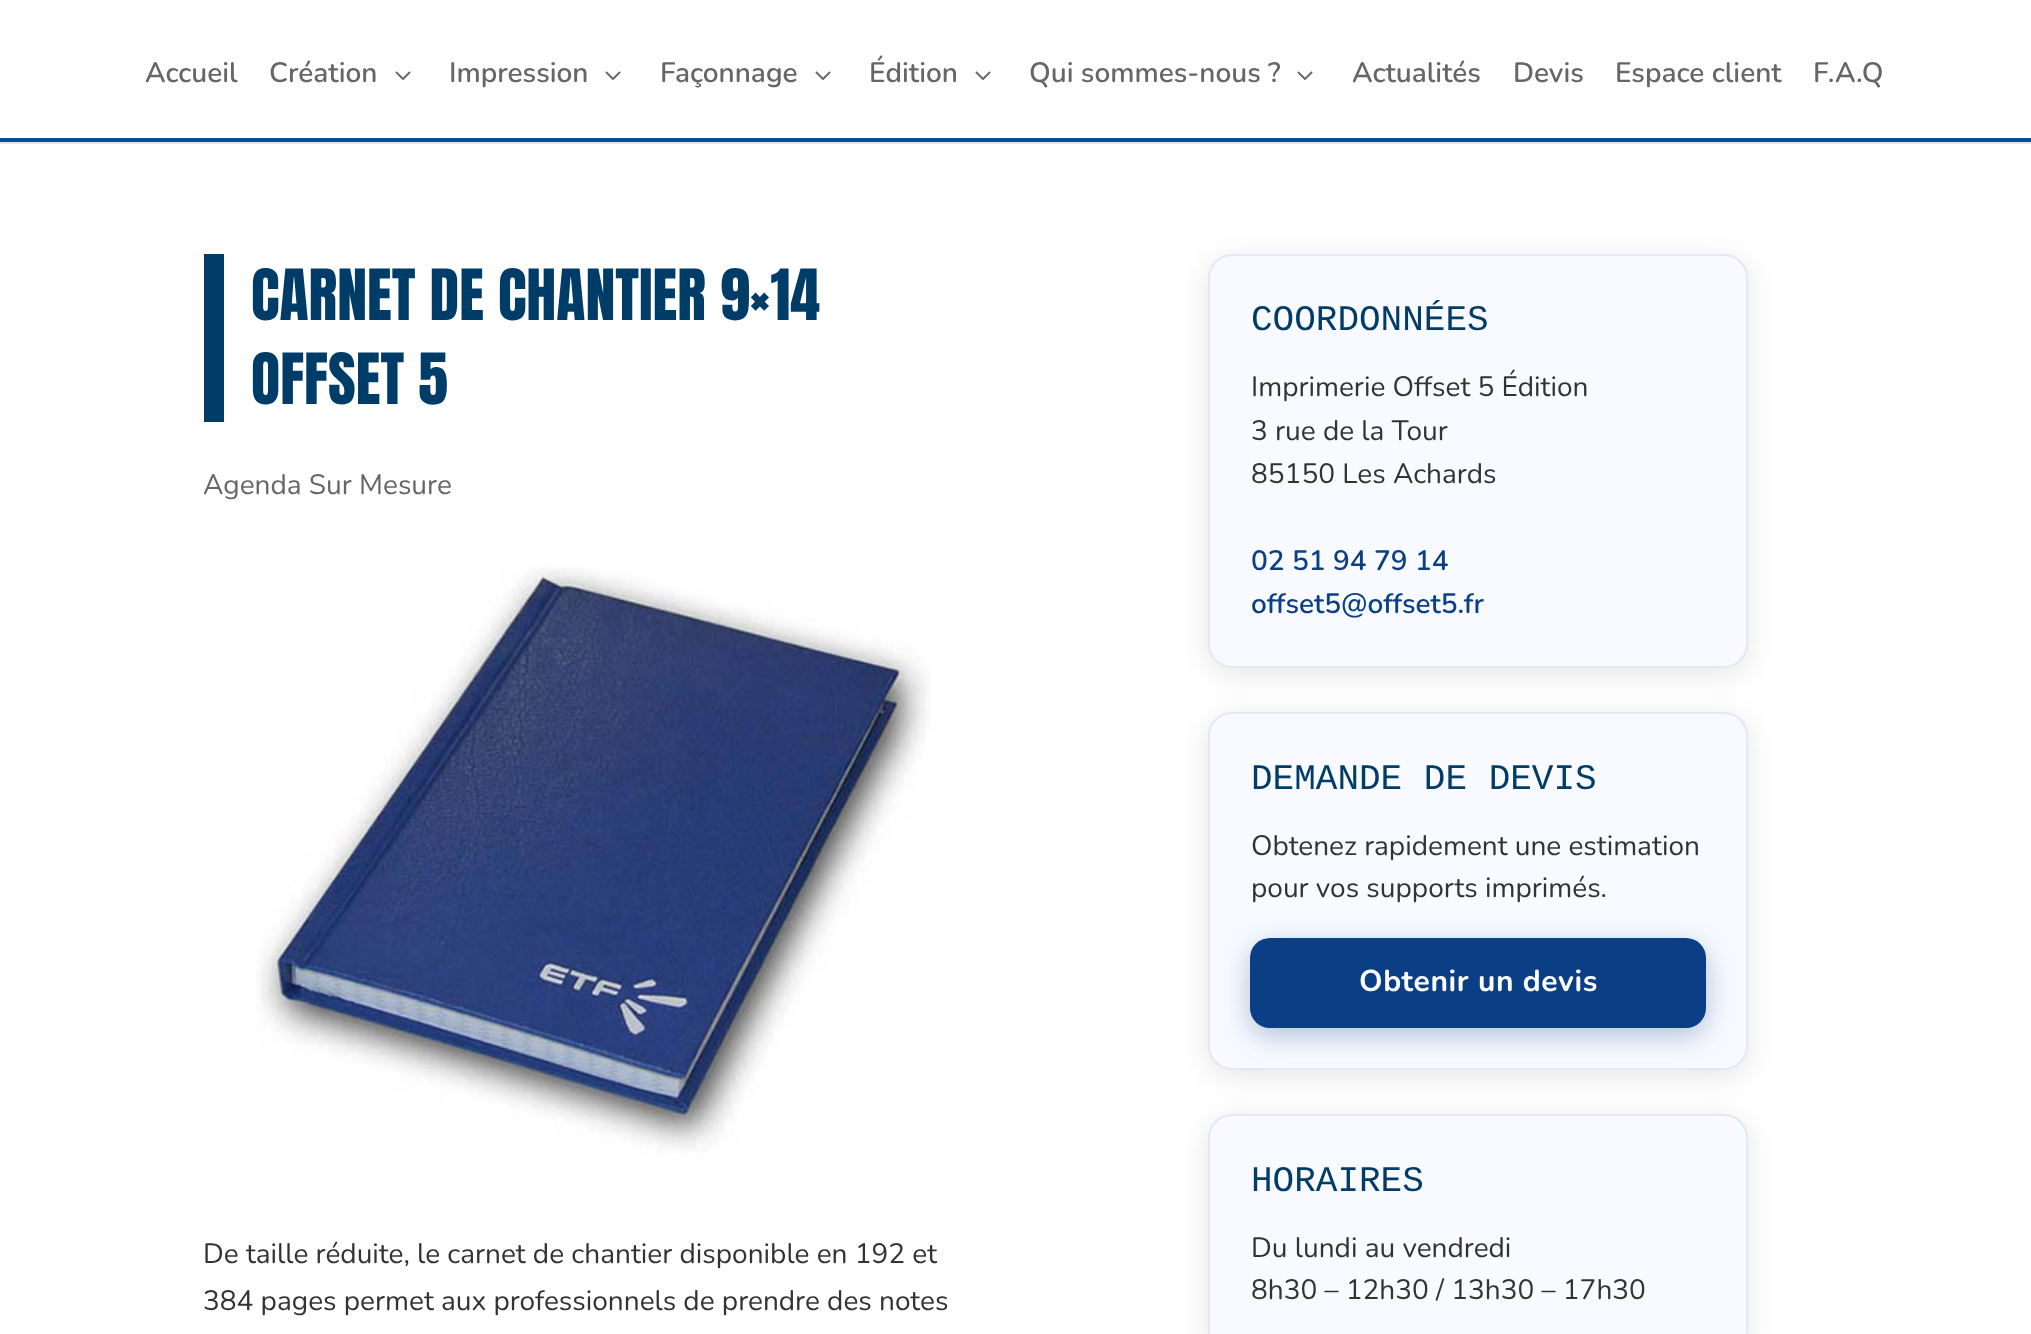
<svg xmlns="http://www.w3.org/2000/svg" width="2031" height="1334" viewBox="0 0 2031 1334">
  <rect width="100%" height="100%" fill="#fff"/>
  <path d="M0 142h2031v2H0z" fill="#e6e6e6"/>
  <path d="M0 138h2031v4H0z" fill="#004f9f"/>
  <image x="395" y="71" width="16" height="9" href="img/1.png"/>
  <image x="605" y="71" width="16" height="9" href="img/1.png"/>
  <image x="815" y="71" width="16" height="9" href="img/1.png"/>
  <image x="975" y="71" width="16" height="9" href="img/1.png"/>
  <image x="1297" y="71" width="16" height="9" href="img/1.png"/>
  <path d="M204 254h20v168H204z" fill="#003c68"/>
  <image x="256" y="567" width="675" height="589" href="img/2.png"/>
  <rect x="1208" y="260" width="540" height="414" rx="24" fill="#0000001a" filter="blur(14px)"/>
  <rect x="1209" y="255" width="538" height="412" rx="23" fill="#f8faff" stroke="#e1e9f5" stroke-width="2"/>
  <rect x="1208" y="718" width="540" height="358" rx="24" fill="#0000001a" filter="blur(14px)"/>
  <rect x="1209" y="713" width="538" height="356" rx="23" fill="#f8faff" stroke="#e1e9f5" stroke-width="2"/>
  <rect x="1250" y="946" width="456" height="90" rx="20" fill="#0a3f854d" filter="blur(14px)"/>
  <rect x="1250" y="938" width="456" height="90" rx="20" fill="#0a3f85"/>
  <rect x="1208" y="1120" width="540" height="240" rx="24" fill="#0000001a" filter="blur(14px)"/>
  <rect x="1209" y="1115" width="538" height="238" rx="23" fill="#f8faff" stroke="#e1e9f5" stroke-width="2"/>
  <g font-family="Nunito" font-size="28" font-weight="600" fill="#666">
    <text x="145" y="82">Accueil</text>
    <text x="269" y="82">Création</text>
    <text x="449" y="82">Impression</text>
    <text x="660" y="82">Façonnage</text>
    <text x="869" y="82">Édition</text>
    <text x="1029" y="82">Qui sommes-nous ?</text>
    <text x="1352" y="82">Actualités</text>
    <text x="1513" y="82">Devis</text>
    <text x="1615" y="82">Espace client</text>
    <text x="1813" y="82">F.A.Q</text>
  </g>
  <g font-family="Anton" font-size="60" fill="#003c68">
    <text x="251" y="320">CARNET DE CHANTIER 9×14</text>
    <text x="251" y="404">OFFSET 5</text>
  </g>
  <text x="203" y="494" font-family="Nunito" font-size="28" fill="#666">Agenda Sur Mesure</text>
  <g font-family="Nunito" font-size="28" fill="#333">
    <text x="203" y="1263">De taille réduite, le carnet de chantier disponible en 192 et</text>
    <text x="203" y="1310">384 pages permet aux professionnels de prendre des notes</text>
  </g>
  <text x="1251" y="330" font-family="Liberation Mono" font-size="36" fill="#003c68">COORDONNÉES</text>
  <g font-family="Nunito" font-size="28" fill="#333">
    <text x="1251" y="396">Imprimerie Offset 5 Édition</text>
    <text x="1251" y="440">3 rue de la Tour</text>
    <text x="1251" y="483">85150 Les Achards</text>
  </g>
  <g font-family="Nunito" font-size="28" font-weight="600" fill="#0a3f85">
    <text x="1251" y="570">02 51 94 79 14</text>
    <text x="1251" y="613">offset5@offset5.fr</text>
  </g>
  <text x="1251" y="789" font-family="Liberation Mono" font-size="36" fill="#003c68">DEMANDE DE DEVIS</text>
  <g font-family="Nunito" font-size="28" fill="#333">
    <text x="1251" y="855">Obtenez rapidement une estimation</text>
    <text x="1251" y="897">pour vos supports imprimés.</text>
  </g>
  <text x="1359" y="991" font-family="Nunito" font-size="30" font-weight="bold" letter-spacing="0.6" fill="#fff">Obtenir un devis</text>
  <text x="1251" y="1191" font-family="Liberation Mono" font-size="36" fill="#003c68">HORAIRES</text>
  <g font-family="Nunito" font-size="28" fill="#333">
    <text x="1251" y="1257">Du lundi au vendredi</text>
    <text x="1251" y="1299">8h30 – 12h30 / 13h30 – 17h30</text>
  </g>
</svg>
